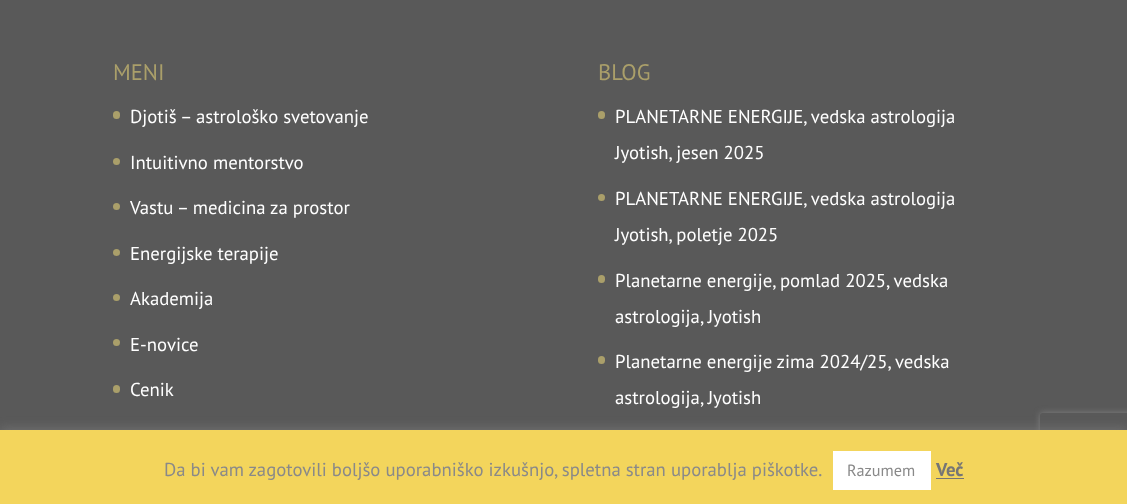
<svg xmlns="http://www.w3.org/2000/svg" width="1127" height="504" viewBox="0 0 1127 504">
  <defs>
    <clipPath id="clip1"><path d="M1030 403H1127V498H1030ZM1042.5 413H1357.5C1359 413 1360 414 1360 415.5V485.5C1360 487 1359 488 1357.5 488H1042.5C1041 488 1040 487 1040 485.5V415.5C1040 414 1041 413 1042.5 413Z" clip-rule="evenodd"/></clipPath>
  </defs>
  <rect width="100%" height="100%" fill="#595959"/>
  <rect x="113" y="111" width="7" height="8" rx="3.5" fill="#aa9f6a"/>
  <circle cx="116.5" cy="161.5" r="3.5" fill="#aa9f6a"/>
  <circle cx="116.5" cy="206.5" r="3.5" fill="#aa9f6a"/>
  <circle cx="116.5" cy="252.5" r="3.5" fill="#aa9f6a"/>
  <circle cx="116.5" cy="297.5" r="3.5" fill="#aa9f6a"/>
  <circle cx="116.5" cy="342.5" r="3.5" fill="#aa9f6a"/>
  <rect x="113" y="385" width="7" height="8" rx="3.5" fill="#aa9f6a"/>
  <rect x="598" y="111" width="7" height="8" rx="3.5" fill="#aa9f6a"/>
  <circle cx="601.5" cy="197.5" r="3.5" fill="#aa9f6a"/>
  <rect x="598" y="275" width="7" height="8" rx="3.5" fill="#aa9f6a"/>
  <rect x="598" y="356" width="7" height="8" rx="3.5" fill="#aa9f6a"/>
  <path d="M0 429h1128v75H0z" fill="#acabab4d" filter="blur(6px)"/>
  <g clip-path="url(#clip1)">
    <rect x="1040" y="413" width="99" height="75" rx="2.5" fill="#808080" filter="blur(3px)"/>
  </g>
  <path d="M0 430h1127v74H0z" fill="#f3d55c"/>
  <path d="M833 451h98v39H833z" fill="#fff"/>
  <path d="M936 478h28v1H936z" fill="#757575"/>
  <text x="113" y="80" font-family="PT Sans" font-size="22.5" fill="#aa9f6a">MENI</text>
  <g font-family="PT Sans" font-size="18.75" fill="#fff">
    <text x="130" y="123">Djotiš – astrološko svetovanje</text>
    <text x="130" y="169">Intuitivno mentorstvo</text>
    <text x="130" y="214">Vastu – medicina za prostor</text>
    <text x="130" y="260">Energijske terapije</text>
    <text x="130" y="305">Akademija</text>
    <text x="130" y="351">E-novice</text>
    <text x="130" y="396">Cenik</text>
  </g>
  <text x="598" y="80" font-family="PT Sans" font-size="22.5" fill="#aa9f6a">BLOG</text>
  <g font-family="PT Sans" font-size="18.75" fill="#fff">
    <text x="615" y="123">PLANETARNE ENERGIJE, vedska astrologija</text>
    <text x="615" y="159">Jyotish, jesen 2025</text>
    <text x="615" y="205">PLANETARNE ENERGIJE, vedska astrologija</text>
    <text x="615" y="241">Jyotish, poletje 2025</text>
    <text x="615" y="287">Planetarne energije, pomlad 2025, vedska</text>
    <text x="615" y="323">astrologija, Jyotish</text>
    <text x="615" y="368">Planetarne energije zima 2024/25, vedska</text>
    <text x="615" y="404">astrologija, Jyotish</text>
  </g>
  <text x="164" y="476" font-family="PT Sans" font-size="18.75" fill="#898989">Da bi vam zagotovili boljšo uporabniško izkušnjo, spletna stran uporablja piškotke.</text>
  <text x="847" y="476" font-family="PT Sans" font-size="16.25" fill="#898989">Razumem</text>
  <text x="936" y="476" font-family="PT Sans" font-size="18.75" font-weight="bold" fill="#757575">Več</text>
</svg>
